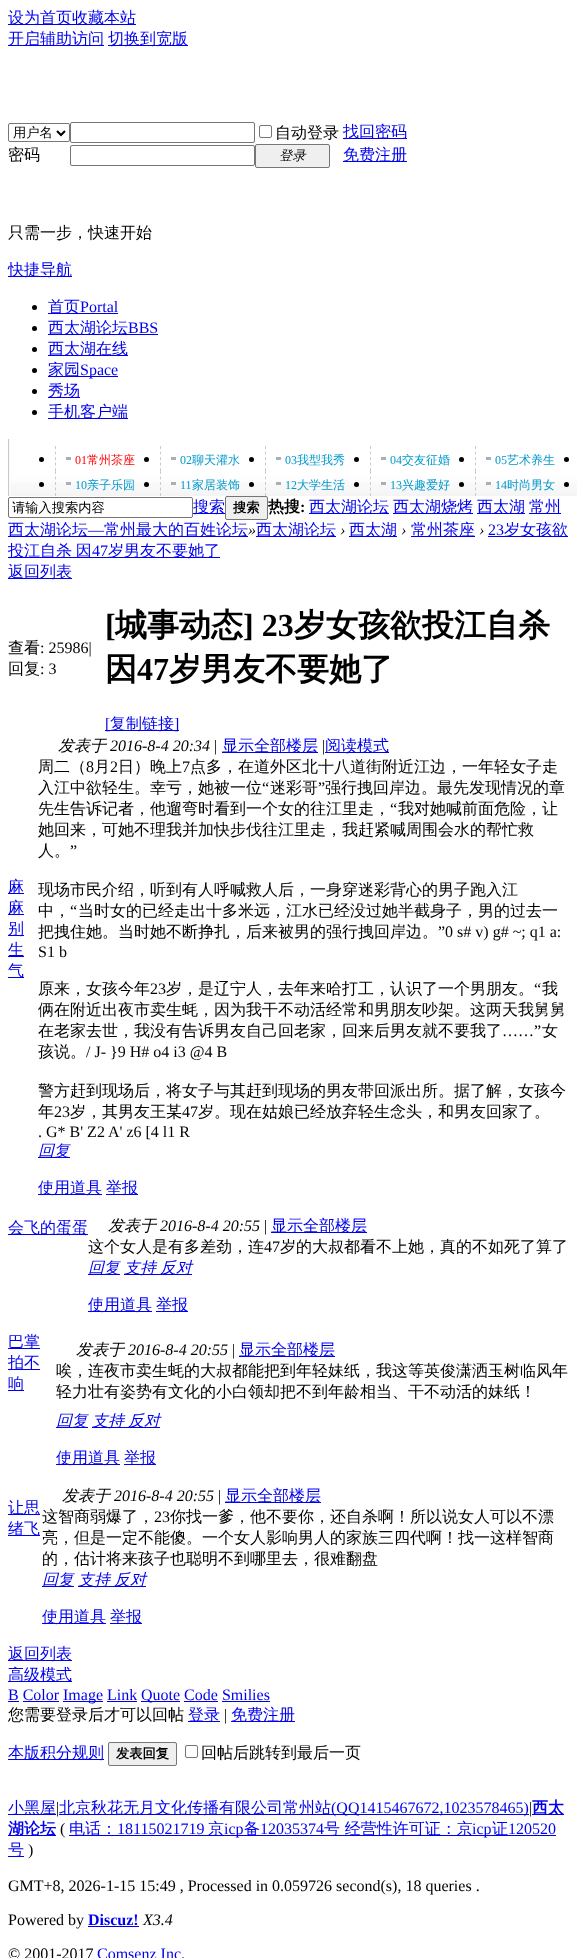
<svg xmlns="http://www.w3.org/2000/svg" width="577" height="1958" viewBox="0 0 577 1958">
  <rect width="100%" height="100%" fill="#fff"/>
  <path d="M8 24h128v1H8z" fill="#00e"/>
  <path d="M8 45h96v1H8z" fill="#00e"/>
  <path d="M108 45h80v1H108z" fill="#00e"/>
  <rect x="8.5" y="123.5" width="61" height="18" rx="1.5" fill="none" stroke="#767676"/>
  <path d="M57 131L61 135L65 131" fill="none" stroke="#000" stroke-width="2"/>
  <rect x="70.5" y="122.5" width="184" height="20" rx="1.5" fill="none" stroke="#767676"/>
  <rect x="259.5" y="125.5" width="12" height="12" rx="1.5" fill="none" stroke="#767676"/>
  <path d="M343 138h64v1H343z" fill="#00e"/>
  <rect x="70.5" y="145.5" width="184" height="20" rx="1.5" fill="none" stroke="#767676"/>
  <rect x="255.5" y="144.5" width="74" height="23" rx="1.5" fill="#efefef" stroke="#767676"/>
  <path d="M343 161h64v1H343z" fill="#00e"/>
  <path d="M8 276h64v1H8z" fill="#00e"/>
  <circle cx="34.5" cy="307.5" r="2.5" fill="#000"/>
  <path d="M48 313h70v1H48z" fill="#00e"/>
  <circle cx="34.5" cy="328.5" r="2.5" fill="#000"/>
  <path d="M48 334h110v1H48z" fill="#00e"/>
  <circle cx="34.5" cy="349.5" r="2.5" fill="#000"/>
  <path d="M48 355h80v1H48z" fill="#00e"/>
  <circle cx="34.5" cy="370.5" r="2.5" fill="#000"/>
  <path d="M48 376h70v1H48z" fill="#00e"/>
  <circle cx="34.5" cy="391.5" r="2.5" fill="#000"/>
  <path d="M48 397h32v1H48z" fill="#00e"/>
  <circle cx="34.5" cy="412.5" r="2.5" fill="#000"/>
  <path d="M48 418h80v1H48z" fill="#00e"/>
  <image x="8" y="439" width="569" height="57" href="img/1.png"/>
  <path d="M55.5 446V471" fill="none" stroke="#ccc" stroke-dasharray="3 2.5"/>
  <circle cx="41.5" cy="459.5" r="2.5" fill="#000"/>
  <path d="M66 457h5v3H66z" fill="#a8b0b6"/>
  <path d="M160.5 446V471" fill="none" stroke="#ccc" stroke-dasharray="3 2.5"/>
  <circle cx="146.5" cy="459.5" r="2.5" fill="#000"/>
  <path d="M171 457h5v3H171z" fill="#a8b0b6"/>
  <path d="M265.5 446V471" fill="none" stroke="#ccc" stroke-dasharray="3 2.5"/>
  <circle cx="251.5" cy="459.5" r="2.5" fill="#000"/>
  <path d="M276 457h5v3H276z" fill="#a8b0b6"/>
  <path d="M370.5 446V471" fill="none" stroke="#ccc" stroke-dasharray="3 2.5"/>
  <circle cx="356.5" cy="459.5" r="2.5" fill="#000"/>
  <path d="M381 457h5v3H381z" fill="#a8b0b6"/>
  <path d="M475.5 446V471" fill="none" stroke="#ccc" stroke-dasharray="3 2.5"/>
  <circle cx="461.5" cy="459.5" r="2.5" fill="#000"/>
  <path d="M486 457h5v3H486z" fill="#a8b0b6"/>
  <circle cx="566.5" cy="459.5" r="2.5" fill="#000"/>
  <path d="M55.5 471V496" fill="none" stroke="#ccc" stroke-dasharray="3 2.5"/>
  <circle cx="41.5" cy="484.5" r="2.5" fill="#000"/>
  <path d="M66 482h5v3H66z" fill="#a8b0b6"/>
  <path d="M160.5 471V496" fill="none" stroke="#ccc" stroke-dasharray="3 2.5"/>
  <circle cx="146.5" cy="484.5" r="2.5" fill="#000"/>
  <path d="M171 482h5v3H171z" fill="#a8b0b6"/>
  <path d="M265.5 471V496" fill="none" stroke="#ccc" stroke-dasharray="3 2.5"/>
  <circle cx="251.5" cy="484.5" r="2.5" fill="#000"/>
  <path d="M276 482h5v3H276z" fill="#a8b0b6"/>
  <path d="M370.5 471V496" fill="none" stroke="#ccc" stroke-dasharray="3 2.5"/>
  <circle cx="356.5" cy="484.5" r="2.5" fill="#000"/>
  <path d="M381 482h5v3H381z" fill="#a8b0b6"/>
  <path d="M475.5 471V496" fill="none" stroke="#ccc" stroke-dasharray="3 2.5"/>
  <circle cx="461.5" cy="484.5" r="2.5" fill="#000"/>
  <path d="M486 482h5v3H486z" fill="#a8b0b6"/>
  <circle cx="566.5" cy="484.5" r="2.5" fill="#000"/>
  <rect x="8.5" y="497.5" width="184" height="20" rx="1.5" fill="none" stroke="#767676"/>
  <path d="M193 513h32v1H193z" fill="#00e"/>
  <rect x="225.5" y="496.5" width="42" height="23" rx="1.5" fill="#efefef" stroke="#767676"/>
  <path d="M309 513h80v1H309z" fill="#00e"/>
  <path d="M393 513h80v1H393z" fill="#00e"/>
  <path d="M477 513h48v1H477z" fill="#00e"/>
  <path d="M529 513h32v1H529z" fill="#00e"/>
  <path d="M8 536h240v1H8z" fill="#00e"/>
  <path d="M256 536h80v1H256z" fill="#00e"/>
  <path d="M349 536h48v1H349z" fill="#00e"/>
  <path d="M411 536h64v1H411z" fill="#00e"/>
  <path d="M488 536h80v1H488z" fill="#00e"/>
  <path d="M8 557h212v1H8z" fill="#00e"/>
  <path d="M8 578h64v1H8z" fill="#00e"/>
  <path d="M105 730h74v1H105z" fill="#00e"/>
  <path d="M8 893h16v1H8z" fill="#00e"/>
  <path d="M8 914h16v1H8z" fill="#00e"/>
  <path d="M8 935h16v1H8z" fill="#00e"/>
  <path d="M8 956h16v1H8z" fill="#00e"/>
  <path d="M8 977h16v1H8z" fill="#00e"/>
  <path d="M222 752h96v1H222z" fill="#00e"/>
  <path d="M325 752h64v1H325z" fill="#00e"/>
  <path d="M38 1157h32v1H38z" fill="#00e"/>
  <path d="M38 1194h64v1H38z" fill="#00e"/>
  <path d="M106 1194h32v1H106z" fill="#00e"/>
  <path d="M8 1234h80v1H8z" fill="#00e"/>
  <path d="M271 1232h96v1H271z" fill="#00e"/>
  <path d="M88 1274h32v1H88z" fill="#00e"/>
  <path d="M124 1274h68v1H124z" fill="#00e"/>
  <path d="M88 1311h64v1H88z" fill="#00e"/>
  <path d="M156 1311h32v1H156z" fill="#00e"/>
  <path d="M8 1348h32v1H8z" fill="#00e"/>
  <path d="M8 1369h32v1H8z" fill="#00e"/>
  <path d="M8 1390h16v1H8z" fill="#00e"/>
  <path d="M239 1356h96v1H239z" fill="#00e"/>
  <path d="M56 1427h32v1H56z" fill="#00e"/>
  <path d="M92 1427h68v1H92z" fill="#00e"/>
  <path d="M56 1464h64v1H56z" fill="#00e"/>
  <path d="M124 1464h32v1H124z" fill="#00e"/>
  <path d="M8 1514h32v1H8z" fill="#00e"/>
  <path d="M8 1535h32v1H8z" fill="#00e"/>
  <path d="M225 1502h96v1H225z" fill="#00e"/>
  <path d="M42 1586h32v1H42z" fill="#00e"/>
  <path d="M78 1586h68v1H78z" fill="#00e"/>
  <path d="M42 1623h64v1H42z" fill="#00e"/>
  <path d="M110 1623h32v1H110z" fill="#00e"/>
  <path d="M8 1660h64v1H8z" fill="#00e"/>
  <path d="M8 1681h64v1H8z" fill="#00e"/>
  <path d="M8 1701h11v1H8z" fill="#00e"/>
  <path d="M63 1701h40v1H63z" fill="#00e"/>
  <path d="M141 1701h39v1H141z" fill="#00e"/>
  <path d="M23 1701h36v1H23z" fill="#00e"/>
  <path d="M107 1701h30v1H107z" fill="#00e"/>
  <path d="M184 1701h34v1H184z" fill="#00e"/>
  <path d="M222 1701h48v1H222z" fill="#00e"/>
  <path d="M188 1721h32v1H188z" fill="#00e"/>
  <path d="M231 1721h64v1H231z" fill="#00e"/>
  <path d="M8 1759h96v1H8z" fill="#00e"/>
  <rect x="108.5" y="1742.5" width="68" height="23" rx="1.5" fill="#efefef" stroke="#767676"/>
  <rect x="185.5" y="1745.5" width="12" height="12" rx="1.5" fill="none" stroke="#767676"/>
  <path d="M8 1814h48v1H8z" fill="#00e"/>
  <path d="M59 1814h470v1H59z" fill="#00e"/>
  <path d="M532 1814h32v1H532z" fill="#00e"/>
  <path d="M8 1835h48v1H8z" fill="#00e"/>
  <path d="M69 1835h487v1H69z" fill="#00e"/>
  <path d="M8 1856h16v1H8z" fill="#00e"/>
  <path d="M88 1926h51v1H88z" fill="#00e"/>
  <g font-family="WenQuanYi Zen Hei" font-size="16" font-weight="500" fill="#00e">
    <text x="8" y="23">设为首页收藏本站</text>
    <text x="8" y="44">开启辅助访问</text>
    <text x="108" y="44">切换到宽版</text>
  </g>
  <text x="13" y="137" font-family="WenQuanYi Zen Hei" font-size="13.25" font-weight="500" fill="#000">用户名</text>
  <text x="275" y="138" font-family="WenQuanYi Zen Hei" font-size="16" font-weight="500" fill="#000">自动登录</text>
  <text x="343" y="137" font-family="WenQuanYi Zen Hei" font-size="16" font-weight="500" fill="#00e">找回密码</text>
  <text x="8" y="160" font-family="WenQuanYi Zen Hei" font-size="16" font-weight="500" fill="#000">密码</text>
  <text x="279" y="160" font-family="WenQuanYi Zen Hei" font-size="13.25" font-weight="500" font-style="italic" fill="#000">登录</text>
  <text x="343" y="160" font-family="WenQuanYi Zen Hei" font-size="16" font-weight="500" fill="#00e">免费注册</text>
  <text x="8" y="238" font-family="WenQuanYi Zen Hei" font-size="16" font-weight="500" fill="#000">只需一步，快速开始</text>
  <g font-family="WenQuanYi Zen Hei" font-size="16" font-weight="500" fill="#00e">
    <text x="8" y="275">快捷导航</text>
    <text x="48" y="312">首页</text>
  </g>
  <text x="80" y="312" font-family="Liberation Serif" font-size="16" fill="#00e">Portal</text>
  <text x="48" y="333" font-family="WenQuanYi Zen Hei" font-size="16" font-weight="500" fill="#00e">西太湖论坛</text>
  <text x="128" y="333" font-family="Liberation Serif" font-size="16" fill="#00e">BBS</text>
  <g font-family="WenQuanYi Zen Hei" font-size="16" font-weight="500" fill="#00e">
    <text x="48" y="354">西太湖在线</text>
    <text x="48" y="375">家园</text>
  </g>
  <text x="80" y="375" font-family="Liberation Serif" font-size="16" fill="#00e">Space</text>
  <g font-family="WenQuanYi Zen Hei" font-size="16" font-weight="500" fill="#00e">
    <text x="48" y="396">秀场</text>
    <text x="48" y="417">手机客户端</text>
  </g>
  <text x="75" y="464" font-family="Liberation Serif" font-size="12" fill="#f00">01</text>
  <text x="87" y="464" font-family="WenQuanYi Zen Hei" font-size="12" font-weight="500" fill="#f00">常州茶座</text>
  <text x="180" y="464" font-family="Liberation Serif" font-size="12" fill="#09c">02</text>
  <text x="192" y="464" font-family="WenQuanYi Zen Hei" font-size="12" font-weight="500" fill="#09c">聊天灌水</text>
  <text x="285" y="464" font-family="Liberation Serif" font-size="12" fill="#09c">03</text>
  <text x="297" y="464" font-family="WenQuanYi Zen Hei" font-size="12" font-weight="500" fill="#09c">我型我秀</text>
  <text x="390" y="464" font-family="Liberation Serif" font-size="12" fill="#09c">04</text>
  <text x="402" y="464" font-family="WenQuanYi Zen Hei" font-size="12" font-weight="500" fill="#09c">交友征婚</text>
  <text x="495" y="464" font-family="Liberation Serif" font-size="12" fill="#09c">05</text>
  <text x="507" y="464" font-family="WenQuanYi Zen Hei" font-size="12" font-weight="500" fill="#09c">艺术养生</text>
  <text x="75" y="489" font-family="Liberation Serif" font-size="12" fill="#09c">10</text>
  <text x="87" y="489" font-family="WenQuanYi Zen Hei" font-size="12" font-weight="500" fill="#09c">亲子乐园</text>
  <text x="180" y="489" font-family="Liberation Serif" font-size="12" fill="#09c">11</text>
  <text x="192" y="489" font-family="WenQuanYi Zen Hei" font-size="12" font-weight="500" fill="#09c">家居装饰</text>
  <text x="285" y="489" font-family="Liberation Serif" font-size="12" fill="#09c">12</text>
  <text x="297" y="489" font-family="WenQuanYi Zen Hei" font-size="12" font-weight="500" fill="#09c">大学生活</text>
  <text x="390" y="489" font-family="Liberation Serif" font-size="12" fill="#09c">13</text>
  <text x="402" y="489" font-family="WenQuanYi Zen Hei" font-size="12" font-weight="500" fill="#09c">兴趣爱好</text>
  <text x="495" y="489" font-family="Liberation Serif" font-size="12" fill="#09c">14</text>
  <text x="507" y="489" font-family="WenQuanYi Zen Hei" font-size="12" font-weight="500" fill="#09c">时尚男女</text>
  <text x="12" y="512" font-family="WenQuanYi Zen Hei" font-size="13.25" font-weight="500" fill="#000">请输入搜索内容</text>
  <text x="193" y="512" font-family="WenQuanYi Zen Hei" font-size="16" font-weight="500" fill="#00e">搜索</text>
  <text x="233" y="512" font-family="WenQuanYi Zen Hei" font-size="13.25" font-weight="bold" fill="#000">搜索</text>
  <text x="268" y="512" font-family="WenQuanYi Zen Hei" font-size="16" font-weight="bold" fill="#000">热搜</text>
  <text x="300" y="512" font-family="Liberation Serif" font-size="16" font-weight="bold" fill="#000">:</text>
  <g font-family="WenQuanYi Zen Hei" font-size="16" font-weight="500" fill="#00e">
    <text x="309" y="512">西太湖论坛</text>
    <text x="393" y="512">西太湖烧烤</text>
    <text x="477" y="512">西太湖</text>
    <text x="529" y="512">常州</text>
    <text x="8" y="535">西太湖论坛</text>
  </g>
  <text x="88" y="535" font-family="Liberation Serif" font-size="16" fill="#00e">—</text>
  <text x="104" y="535" font-family="WenQuanYi Zen Hei" font-size="16" font-weight="500" fill="#00e">常州最大的百姓论坛</text>
  <text x="248" y="535" font-family="Liberation Serif" font-size="16" font-style="italic" fill="#000">»</text>
  <text x="256" y="535" font-family="WenQuanYi Zen Hei" font-size="16" font-weight="500" fill="#00e">西太湖论坛</text>
  <text x="340" y="535" font-family="Liberation Serif" font-size="16" font-style="italic" fill="#000">›</text>
  <text x="349" y="535" font-family="WenQuanYi Zen Hei" font-size="16" font-weight="500" fill="#00e">西太湖</text>
  <text x="401" y="535" font-family="Liberation Serif" font-size="16" font-style="italic" fill="#000">›</text>
  <text x="411" y="535" font-family="WenQuanYi Zen Hei" font-size="16" font-weight="500" fill="#00e">常州茶座</text>
  <text x="479" y="535" font-family="Liberation Serif" font-size="16" font-style="italic" fill="#000">›</text>
  <text x="488" y="535" font-family="Liberation Serif" font-size="16" fill="#00e">23</text>
  <g font-family="WenQuanYi Zen Hei" font-size="16" font-weight="500" fill="#00e">
    <text x="504" y="535">岁女孩欲</text>
    <text x="8" y="556" word-spacing="-1">投江自杀 因</text>
  </g>
  <text x="92" y="556" font-family="Liberation Serif" font-size="16" fill="#00e">47</text>
  <g font-family="WenQuanYi Zen Hei" font-size="16" font-weight="500" fill="#00e">
    <text x="108" y="556">岁男友不要她了</text>
    <text x="8" y="577">返回列表</text>
  </g>
  <text x="8" y="653" font-family="WenQuanYi Zen Hei" font-size="16" font-weight="500" fill="#000">查看</text>
  <text x="40" y="653" font-family="Liberation Serif" font-size="16" fill="#000">: 25986|</text>
  <text x="8" y="674" font-family="WenQuanYi Zen Hei" font-size="16" font-weight="500" fill="#000">回复</text>
  <text x="40" y="674" font-family="Liberation Serif" font-size="16" fill="#000">: 3</text>
  <text x="105" y="636" font-family="Liberation Serif" font-size="32" font-weight="bold" fill="#000">[</text>
  <text x="115" y="636" font-family="WenQuanYi Zen Hei" font-size="32" font-weight="bold" fill="#000">城事动态</text>
  <text x="243" y="636" font-family="Liberation Serif" font-size="32" font-weight="bold" fill="#000">] 23</text>
  <g font-family="WenQuanYi Zen Hei" font-size="32" font-weight="bold" fill="#000">
    <text x="294" y="636">岁女孩欲投江自杀</text>
    <text x="105" y="680">因</text>
  </g>
  <text x="137" y="680" font-family="Liberation Serif" font-size="32" font-weight="bold" fill="#000">47</text>
  <text x="169" y="680" font-family="WenQuanYi Zen Hei" font-size="32" font-weight="bold" fill="#000">岁男友不要她了</text>
  <text x="105" y="729" font-family="Liberation Serif" font-size="16" fill="#00e">[</text>
  <text x="110" y="729" font-family="WenQuanYi Zen Hei" font-size="16" font-weight="500" fill="#00e">复制链接</text>
  <text x="174" y="729" font-family="Liberation Serif" font-size="16" fill="#00e">]</text>
  <g font-family="WenQuanYi Zen Hei" font-size="16" font-weight="500" fill="#00e">
    <text x="8" y="892">麻</text>
    <text x="8" y="913">麻</text>
    <text x="8" y="934">别</text>
    <text x="8" y="955">生</text>
    <text x="8" y="976">气</text>
  </g>
  <text x="58" y="751" font-family="WenQuanYi Zen Hei" font-size="16" font-weight="500" font-style="italic" fill="#000">发表于</text>
  <text x="110" y="751" font-family="Liberation Serif" font-size="16" font-style="italic" fill="#000">2016-8-4 20:34</text>
  <text x="214" y="751" font-family="Liberation Serif" font-size="16" fill="#000">|</text>
  <text x="222" y="751" font-family="WenQuanYi Zen Hei" font-size="16" font-weight="500" fill="#00e">显示全部楼层</text>
  <text x="322" y="751" font-family="Liberation Serif" font-size="16" fill="#000">|</text>
  <text x="325" y="751" font-family="WenQuanYi Zen Hei" font-size="16" font-weight="500" fill="#00e">阅读模式</text>
  <text x="38" y="772" font-family="WenQuanYi Zen Hei" font-size="16" font-weight="500" fill="#000">周二（</text>
  <text x="86" y="772" font-family="Liberation Serif" font-size="16" fill="#000">8</text>
  <text x="94" y="772" font-family="WenQuanYi Zen Hei" font-size="16" font-weight="500" fill="#000">月</text>
  <text x="110" y="772" font-family="Liberation Serif" font-size="16" fill="#000">2</text>
  <text x="118" y="772" font-family="WenQuanYi Zen Hei" font-size="16" font-weight="500" fill="#000">日）晚上</text>
  <text x="182" y="772" font-family="Liberation Serif" font-size="16" fill="#000">7</text>
  <g font-family="WenQuanYi Zen Hei" font-size="16" font-weight="500" fill="#000">
    <text x="190" y="772">点多，在道外区北十八道街附近江边，一年轻女子走</text>
    <text x="38" y="793">入江中欲轻生。幸亏，她被一位</text>
  </g>
  <text x="262" y="793" font-family="Liberation Serif" font-size="16" fill="#000">“</text>
  <text x="270" y="793" font-family="WenQuanYi Zen Hei" font-size="16" font-weight="500" fill="#000">迷彩哥</text>
  <text x="318" y="793" font-family="Liberation Serif" font-size="16" fill="#000">”</text>
  <g font-family="WenQuanYi Zen Hei" font-size="16" font-weight="500" fill="#000">
    <text x="325" y="793">强行拽回岸边。最先发现情况的章</text>
    <text x="38" y="814">先生告诉记者，他遛弯时看到一个女的往江里走，</text>
  </g>
  <text x="390" y="814" font-family="Liberation Serif" font-size="16" fill="#000">“</text>
  <g font-family="WenQuanYi Zen Hei" font-size="16" font-weight="500" fill="#000">
    <text x="398" y="814">我对她喊前面危险，让</text>
    <text x="38" y="835">她回来，可她不理我并加快步伐往江里走，我赶紧喊周围会水的帮忙救</text>
    <text x="38" y="856">人。</text>
  </g>
  <text x="70" y="856" font-family="Liberation Serif" font-size="16" fill="#000">”</text>
  <g font-family="WenQuanYi Zen Hei" font-size="16" font-weight="500" fill="#000">
    <text x="38" y="895">现场市民介绍，听到有人呼喊救人后，一身穿迷彩背心的男子跑入江</text>
    <text x="38" y="916">中，</text>
  </g>
  <text x="70" y="916" font-family="Liberation Serif" font-size="16" fill="#000">“</text>
  <g font-family="WenQuanYi Zen Hei" font-size="16" font-weight="500" fill="#000">
    <text x="78" y="916">当时女的已经走出十多米远，江水已经没过她半截身子，男的过去一</text>
    <text x="38" y="937">把拽住她。当时她不断挣扎，后来被男的强行拽回岸边。</text>
  </g>
  <g font-family="Liberation Serif" font-size="16" fill="#000">
    <text x="438" y="937">”0 s# v) g# ~; q1 a:</text>
    <text x="38" y="957">S1 b</text>
  </g>
  <text x="38" y="994" font-family="WenQuanYi Zen Hei" font-size="16" font-weight="500" fill="#000">原来，女孩今年</text>
  <text x="150" y="994" font-family="Liberation Serif" font-size="16" fill="#000">23</text>
  <text x="166" y="994" font-family="WenQuanYi Zen Hei" font-size="16" font-weight="500" fill="#000">岁，是辽宁人，去年来哈打工，认识了一个男朋友。</text>
  <text x="534" y="994" font-family="Liberation Serif" font-size="16" fill="#000">“</text>
  <g font-family="WenQuanYi Zen Hei" font-size="16" font-weight="500" fill="#000">
    <text x="542" y="994">我</text>
    <text x="38" y="1015">俩在附近出夜市卖生蚝，因为我干不动活经常和男朋友吵架。这两天我舅舅</text>
    <text x="38" y="1036">在老家去世，我没有告诉男友自己回老家，回来后男友就不要我了</text>
  </g>
  <text x="502" y="1036" font-family="Liberation Serif" font-size="16" fill="#000">……”</text>
  <g font-family="WenQuanYi Zen Hei" font-size="16" font-weight="500" fill="#000">
    <text x="542" y="1036">女</text>
    <text x="38" y="1057">孩说。</text>
  </g>
  <text x="86" y="1057" font-family="Liberation Serif" font-size="16" fill="#000">/ J- }9 H# o4 i3 @4 B</text>
  <g font-family="WenQuanYi Zen Hei" font-size="16" font-weight="500" fill="#000">
    <text x="38" y="1096">警方赶到现场后，将女子与其赶到现场的男友带回派出所。据了解，女孩今</text>
    <text x="38" y="1117">年</text>
  </g>
  <text x="54" y="1117" font-family="Liberation Serif" font-size="16" fill="#000">23</text>
  <text x="70" y="1117" font-family="WenQuanYi Zen Hei" font-size="16" font-weight="500" fill="#000">岁，其男友王某</text>
  <text x="182" y="1117" font-family="Liberation Serif" font-size="16" fill="#000">47</text>
  <text x="198" y="1117" font-family="WenQuanYi Zen Hei" font-size="16" font-weight="500" fill="#000">岁。现在姑娘已经放弃轻生念头，和男友回家了。</text>
  <text x="38" y="1137" font-family="Liberation Serif" font-size="16" fill="#000">. G* B' Z2 A' z6 [4 l1 R</text>
  <text x="38" y="1156" font-family="WenQuanYi Zen Hei" font-size="16" font-weight="500" font-style="italic" fill="#00e">回复</text>
  <g font-family="WenQuanYi Zen Hei" font-size="16" font-weight="500" fill="#00e">
    <text x="38" y="1193">使用道具</text>
    <text x="106" y="1193">举报</text>
    <text x="8" y="1233">会飞的蛋蛋</text>
  </g>
  <text x="108" y="1231" font-family="WenQuanYi Zen Hei" font-size="16" font-weight="500" font-style="italic" fill="#000">发表于</text>
  <text x="160" y="1231" font-family="Liberation Serif" font-size="16" font-style="italic" fill="#000">2016-8-4 20:55</text>
  <text x="264" y="1231" font-family="Liberation Serif" font-size="16" fill="#000">|</text>
  <text x="271" y="1231" font-family="WenQuanYi Zen Hei" font-size="16" font-weight="500" fill="#00e">显示全部楼层</text>
  <text x="88" y="1252" font-family="WenQuanYi Zen Hei" font-size="16" font-weight="500" fill="#000">这个女人是有多差劲，连</text>
  <text x="264" y="1252" font-family="Liberation Serif" font-size="16" fill="#000">47</text>
  <text x="280" y="1252" font-family="WenQuanYi Zen Hei" font-size="16" font-weight="500" fill="#000">岁的大叔都看不上她，真的不如死了算了</text>
  <g font-family="WenQuanYi Zen Hei" font-size="16" font-weight="500" font-style="italic" fill="#00e">
    <text x="88" y="1273">回复</text>
    <text x="124" y="1273">支持</text>
    <text x="160" y="1273">反对</text>
  </g>
  <g font-family="WenQuanYi Zen Hei" font-size="16" font-weight="500" fill="#00e">
    <text x="88" y="1310">使用道具</text>
    <text x="156" y="1310">举报</text>
    <text x="8" y="1347">巴掌</text>
    <text x="8" y="1368">拍不</text>
    <text x="8" y="1389">响</text>
  </g>
  <text x="76" y="1355" font-family="WenQuanYi Zen Hei" font-size="16" font-weight="500" font-style="italic" fill="#000">发表于</text>
  <text x="128" y="1355" font-family="Liberation Serif" font-size="16" font-style="italic" fill="#000">2016-8-4 20:55</text>
  <text x="232" y="1355" font-family="Liberation Serif" font-size="16" fill="#000">|</text>
  <text x="239" y="1355" font-family="WenQuanYi Zen Hei" font-size="16" font-weight="500" fill="#00e">显示全部楼层</text>
  <g font-family="WenQuanYi Zen Hei" font-size="16" font-weight="500" fill="#000">
    <text x="56" y="1376">唉，连夜市卖生蚝的大叔都能把到年轻妹纸，我这等英俊潇洒玉树临风年</text>
    <text x="56" y="1397">轻力壮有姿势有文化的小白领却把不到年龄相当、干不动活的妹纸！</text>
  </g>
  <g font-family="WenQuanYi Zen Hei" font-size="16" font-weight="500" font-style="italic" fill="#00e">
    <text x="56" y="1426">回复</text>
    <text x="92" y="1426">支持</text>
    <text x="128" y="1426">反对</text>
  </g>
  <g font-family="WenQuanYi Zen Hei" font-size="16" font-weight="500" fill="#00e">
    <text x="56" y="1463">使用道具</text>
    <text x="124" y="1463">举报</text>
    <text x="8" y="1513">让思</text>
    <text x="8" y="1534">绪飞</text>
  </g>
  <text x="62" y="1501" font-family="WenQuanYi Zen Hei" font-size="16" font-weight="500" font-style="italic" fill="#000">发表于</text>
  <text x="114" y="1501" font-family="Liberation Serif" font-size="16" font-style="italic" fill="#000">2016-8-4 20:55</text>
  <text x="218" y="1501" font-family="Liberation Serif" font-size="16" fill="#000">|</text>
  <text x="225" y="1501" font-family="WenQuanYi Zen Hei" font-size="16" font-weight="500" fill="#00e">显示全部楼层</text>
  <text x="42" y="1522" font-family="WenQuanYi Zen Hei" font-size="16" font-weight="500" fill="#000">这智商弱爆了，</text>
  <text x="154" y="1522" font-family="Liberation Serif" font-size="16" fill="#000">23</text>
  <g font-family="WenQuanYi Zen Hei" font-size="16" font-weight="500" fill="#000">
    <text x="170" y="1522">你找一爹，他不要你，还自杀啊！所以说女人可以不漂</text>
    <text x="42" y="1543">亮，但是一定不能傻。一个女人影响男人的家族三四代啊！找一这样智商</text>
    <text x="42" y="1564">的，估计将来孩子也聪明不到哪里去，很难翻盘</text>
  </g>
  <g font-family="WenQuanYi Zen Hei" font-size="16" font-weight="500" font-style="italic" fill="#00e">
    <text x="42" y="1585">回复</text>
    <text x="78" y="1585">支持</text>
    <text x="114" y="1585">反对</text>
  </g>
  <g font-family="WenQuanYi Zen Hei" font-size="16" font-weight="500" fill="#00e">
    <text x="42" y="1622">使用道具</text>
    <text x="110" y="1622">举报</text>
    <text x="8" y="1659">返回列表</text>
    <text x="8" y="1680">高级模式</text>
  </g>
  <g font-family="Liberation Serif" font-size="16" fill="#00e">
    <text x="8" y="1700">B Color</text>
    <text x="63" y="1700">Image Link</text>
    <text x="141" y="1700">Quote Code Smilies</text>
  </g>
  <text x="8" y="1720" font-family="WenQuanYi Zen Hei" font-size="16" font-weight="500" fill="#000">您需要登录后才可以回帖</text>
  <text x="188" y="1720" font-family="WenQuanYi Zen Hei" font-size="16" font-weight="500" fill="#00e">登录</text>
  <text x="224" y="1720" font-family="Liberation Serif" font-size="16" fill="#000">|</text>
  <g font-family="WenQuanYi Zen Hei" font-size="16" font-weight="500" fill="#00e">
    <text x="231" y="1720">免费注册</text>
    <text x="8" y="1758">本版积分规则</text>
  </g>
  <text x="116" y="1758" font-family="WenQuanYi Zen Hei" font-size="13.25" font-weight="bold" fill="#000">发表回复</text>
  <text x="201" y="1758" font-family="WenQuanYi Zen Hei" font-size="16" font-weight="500" fill="#000">回帖后跳转到最后一页</text>
  <text x="8" y="1813" font-family="WenQuanYi Zen Hei" font-size="16" font-weight="500" fill="#00e">小黑屋</text>
  <text x="56" y="1813" font-family="Liberation Serif" font-size="16" fill="#000">|</text>
  <text x="59" y="1813" font-family="WenQuanYi Zen Hei" font-size="16" font-weight="500" fill="#00e">北京秋花无月文化传播有限公司常州站</text>
  <text x="331" y="1813" font-family="Liberation Serif" font-size="16" fill="#00e">(QQ1415467672,1023578465)</text>
  <text x="529" y="1813" font-family="Liberation Serif" font-size="16" fill="#000">|</text>
  <g font-family="WenQuanYi Zen Hei" font-size="16" font-weight="bold" fill="#00e">
    <text x="532" y="1813">西太</text>
    <text x="8" y="1834">湖论坛</text>
  </g>
  <text x="60" y="1834" font-family="Liberation Serif" font-size="16" fill="#000">(</text>
  <text x="69" y="1834" font-family="WenQuanYi Zen Hei" font-size="16" font-weight="500" fill="#00e">电话：</text>
  <text x="117" y="1834" font-family="Liberation Serif" font-size="16" fill="#00e">18115021719</text>
  <text x="208" y="1834" font-family="WenQuanYi Zen Hei" font-size="16" font-weight="500" fill="#00e">京</text>
  <text x="224" y="1834" font-family="Liberation Serif" font-size="16" fill="#00e">icp</text>
  <text x="244" y="1834" font-family="WenQuanYi Zen Hei" font-size="16" font-weight="500" fill="#00e">备</text>
  <text x="260" y="1834" font-family="Liberation Serif" font-size="16" fill="#00e">12035374</text>
  <text x="324" y="1834" font-family="WenQuanYi Zen Hei" font-size="16" font-weight="500" fill="#00e">号 经营性许可证：京</text>
  <text x="472" y="1834" font-family="Liberation Serif" font-size="16" fill="#00e">icp</text>
  <text x="492" y="1834" font-family="WenQuanYi Zen Hei" font-size="16" font-weight="500" fill="#00e">证</text>
  <text x="508" y="1834" font-family="Liberation Serif" font-size="16" fill="#00e">120520</text>
  <text x="8" y="1855" font-family="WenQuanYi Zen Hei" font-size="16" font-weight="500" fill="#00e">号</text>
  <g font-family="Liberation Serif" font-size="16" fill="#000">
    <text x="28" y="1855">)</text>
    <text x="8" y="1891">GMT+8, 2026-1-15 15:49 , Processed in 0.059726 second(s), 18 queries .</text>
    <text x="8" y="1925">Powered by</text>
  </g>
  <text x="88" y="1925" font-family="Liberation Serif" font-size="16" font-weight="bold" fill="#00e">Discuz!</text>
  <text x="143" y="1925" font-family="Liberation Serif" font-size="16" font-style="italic" fill="#000">X3.4</text>
  <text x="8" y="1959" font-family="Liberation Serif" font-size="16" fill="#000">© 2001-2017</text>
  <text x="97" y="1959" font-family="Liberation Serif" font-size="16" fill="#00e">Comsenz Inc.</text>
</svg>
